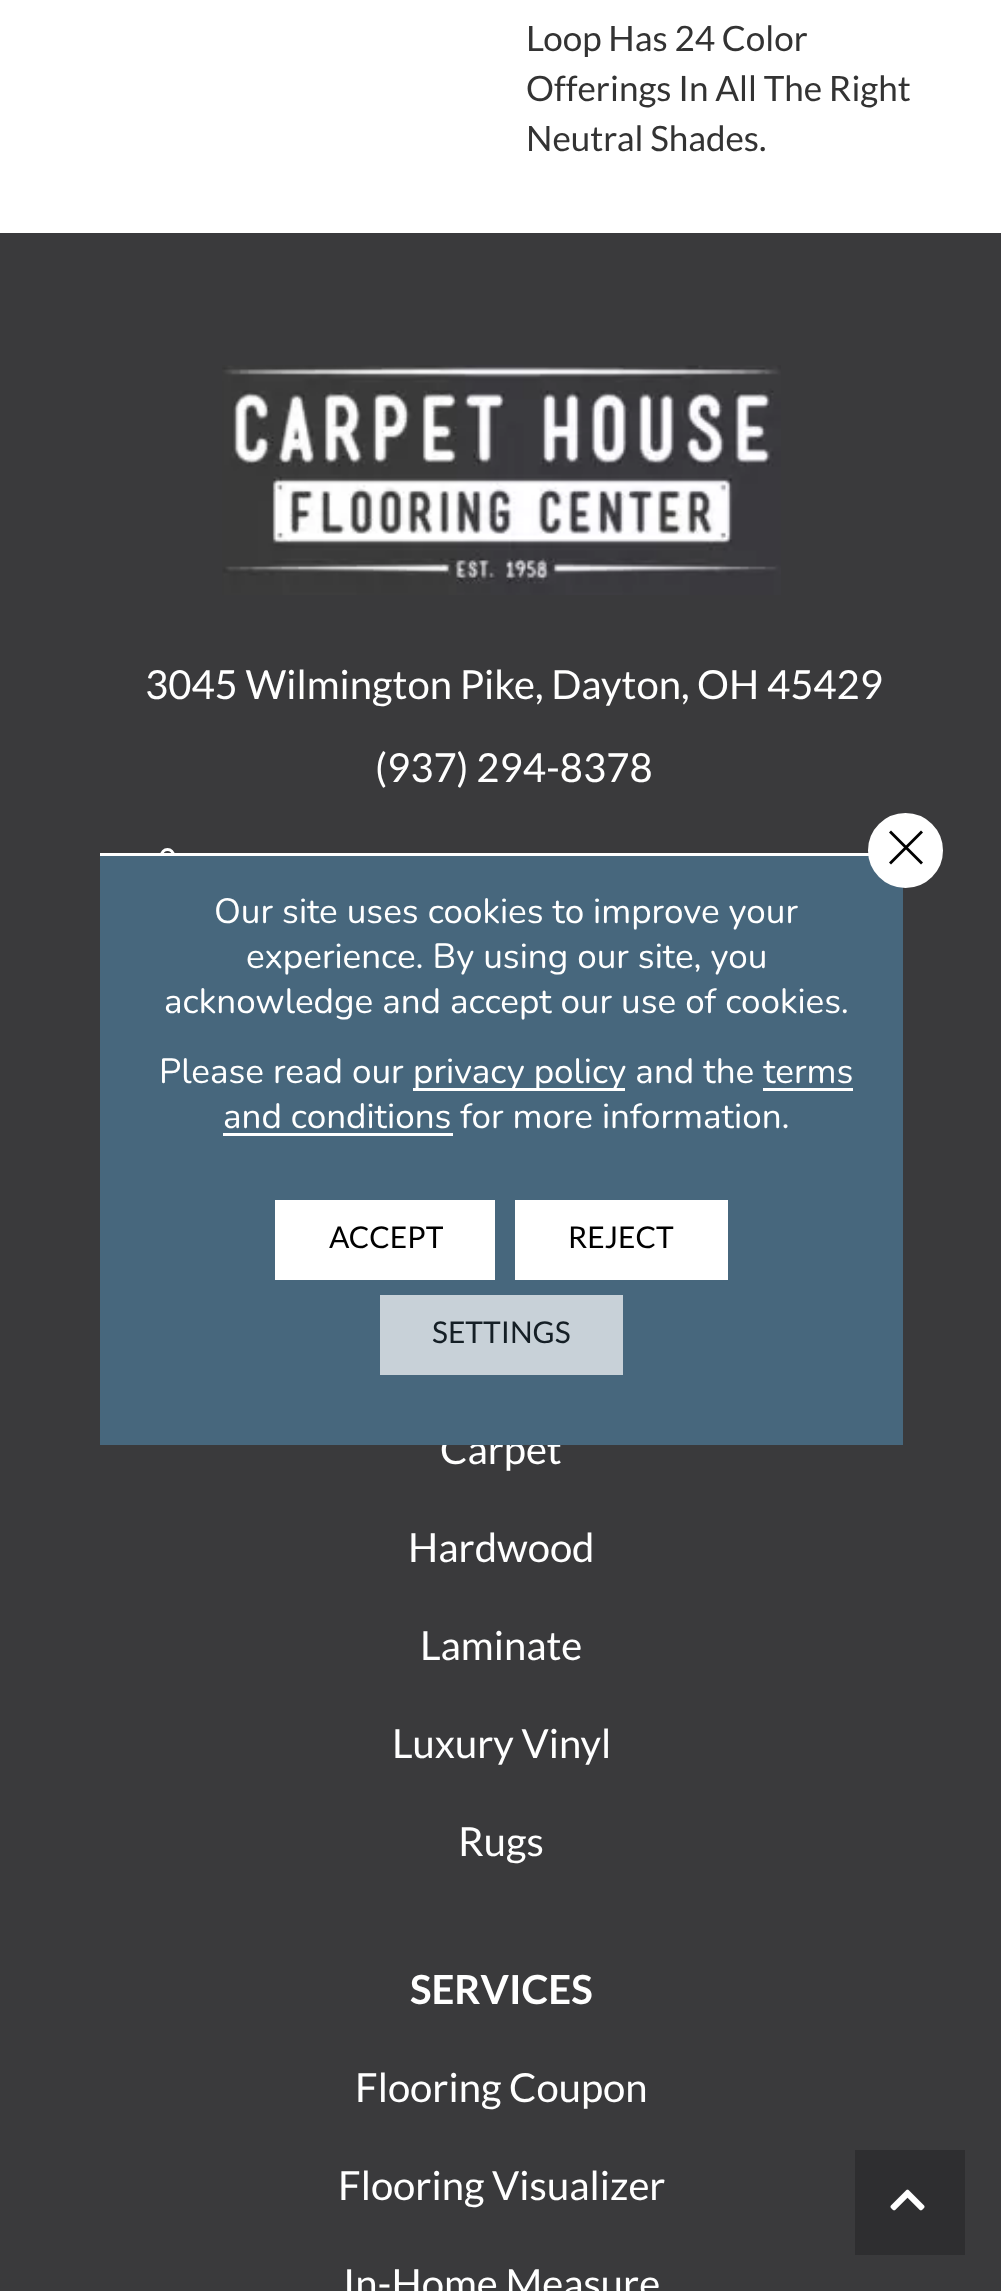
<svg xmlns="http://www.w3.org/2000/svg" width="1001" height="2291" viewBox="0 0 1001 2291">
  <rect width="100%" height="100%" fill="#fff"/>
  <path d="M0 233h1001v2058H0z" fill="#3a3a3c"/>
  <image x="222" y="365" width="559" height="230" href="img/1.png"/>
  <circle cx="167.5" cy="855.5" r="6" fill="none" stroke="#fff" stroke-width="3"/>
  <path d="M100 853h769v3H100z" fill="#fff"/>
  <path d="M855 2150h110v105H855z" fill="#2e2e30"/>
  <image x="890" y="2189" width="35" height="22" href="img/2.png"/>
  <g font-family="Lato" font-size="35" fill="#333">
    <text x="526" y="51">Loop Has 24 Color</text>
    <text x="526" y="101">Offerings In All The Right</text>
    <text x="526" y="151">Neutral Shades.</text>
  </g>
  <g font-family="Lato" font-size="40" fill="#fff">
    <text x="145" y="699">3045 Wilmington Pike, Dayton, OH 45429</text>
    <text x="375" y="782">(937) 294-8378</text>
    <text x="440" y="1464">Carpet</text>
    <text x="408" y="1562">Hardwood</text>
    <text x="420" y="1660">Laminate</text>
    <text x="392" y="1758">Luxury Vinyl</text>
    <text x="458" y="1856">Rugs</text>
  </g>
  <text x="410" y="2004" font-family="Lato" font-size="40" font-weight="bold" fill="#fff">SERVICES</text>
  <g font-family="Lato" font-size="40" fill="#fff">
    <text x="355" y="2102">Flooring Coupon</text>
    <text x="338" y="2200">Flooring Visualizer</text>
    <text x="343" y="2298">In-Home Measure</text>
  </g>
  <path d="M100 856h803v589H100z" fill="#47677d"/>
  <g font-family="Nunito" font-size="35" fill="#fff">
    <text x="214" y="923">Our site uses cookies to improve your</text>
    <text x="246" y="968">experience. By using our site, you</text>
    <text x="164" y="1013">acknowledge and accept our use of cookies.</text>
    <text x="159" y="1083">Please read our</text>
  </g>
  <path d="M413 1088h212v3H413z" fill="#fff"/>
  <g font-family="Nunito" font-size="35" fill="#fff">
    <text x="413" y="1083">privacy policy and the terms</text>
    <text x="223" y="1128">and conditions for more information.</text>
  </g>
  <path d="M763 1088h90v3H763z" fill="#fff"/>
  <path d="M223 1133h230v3H223z" fill="#fff"/>
  <circle cx="905.5" cy="850.5" r="36" fill="#fff" stroke="#fff" stroke-width="3"/>
  <path d="M921 830.5L923 832.5L891 864.5L889 862.5Z" fill="#000"/>
  <path d="M889 832.5L891 830.5L923 862.5L921 864.5Z" fill="#000"/>
  <path d="M275 1200h220v80H275z" fill="#fff"/>
  <text x="329" y="1248" font-family="Lato" font-size="30" fill="#000">ACCEPT</text>
  <path d="M515 1200h213v80H515z" fill="#fff"/>
  <text x="568" y="1248" font-family="Lato" font-size="30" fill="#000">REJECT</text>
  <path d="M380 1295h243v80H380z" fill="#c8d1d8"/>
  <text x="432" y="1343" font-family="Lato" font-size="30" fill="#151f26">SETTINGS</text>
</svg>
